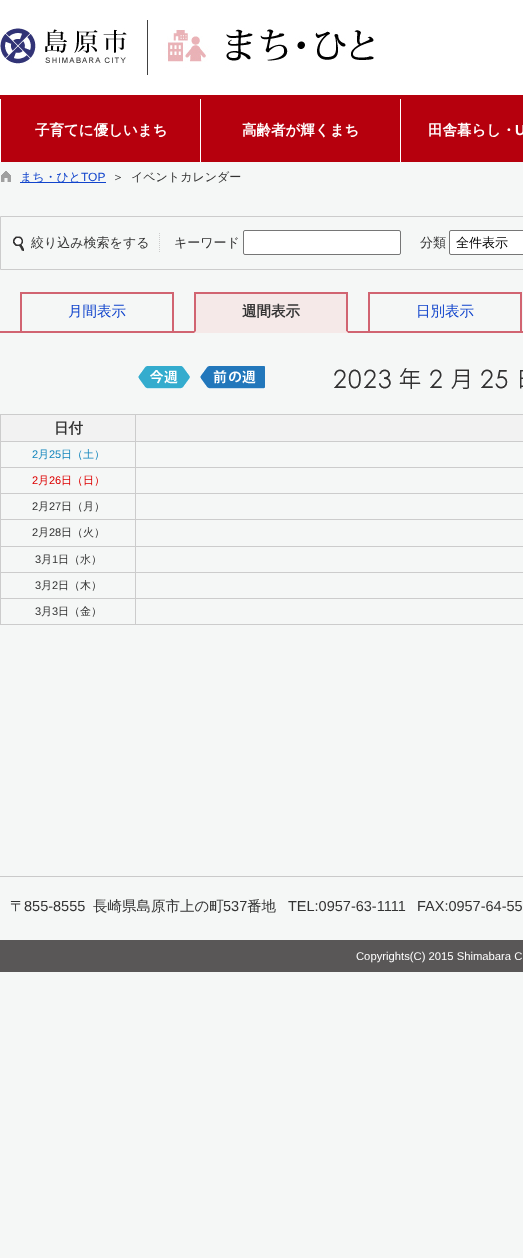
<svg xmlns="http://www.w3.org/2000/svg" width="523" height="1258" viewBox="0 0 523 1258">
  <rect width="100%" height="100%" fill="#f5f7f6"/>
  <path d="M0 0h523v95H0z" fill="#fff"/>
  <image x="0" y="20" width="374" height="55" href="img/1.png"/>
  <path d="M0 95h523v67H0z" fill="#b6000d"/>
  <path d="M0 99h1v63H0z" fill="#fff"/>
  <path d="M200 99h1v63H200z" fill="#fff"/>
  <path d="M400 99h1v63H400z" fill="#fff"/>
  <image x="1" y="171" width="10" height="11" href="img/2.png"/>
  <path d="M20 182h86v1H20z" fill="#14c"/>
  <path d="M0.5 216.5h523v53H0.5z" fill="none" stroke="#ccc"/>
  <image x="13" y="236" width="11" height="15" href="img/3.png"/>
  <path d="M159.5 233V252" fill="none" stroke="#ccc" stroke-dasharray="1 1"/>
  <rect x="243.5" y="230.5" width="157" height="24" rx="1.5" fill="#fff" stroke="#767676"/>
  <rect x="449.5" y="230.5" width="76" height="24" rx="1.5" fill="#fff" stroke="#767676"/>
  <path d="M0 331h523v2H0z" fill="#d16471"/>
  <path d="M21 293h152v39H21z" fill="none" stroke="#d16471" stroke-width="2"/>
  <path d="M194 294h154v39H194z" fill="#f5e9e8"/>
  <path d="M194 292h154v2H194z" fill="#d16471"/>
  <path d="M348 292V333L346 331V294Z" fill="#d16471"/>
  <path d="M348 333H194L196 331H346Z" fill="#f5e9e8"/>
  <path d="M194 333V292L196 294V331Z" fill="#d16471"/>
  <path d="M369 293h152v39H369z" fill="none" stroke="#d16471" stroke-width="2"/>
  <image x="138" y="366" width="52" height="23" href="img/4.png"/>
  <image x="200" y="366" width="65" height="23" href="img/5.png"/>
  <image x="334" y="369" width="12" height="19" href="img/6.png"/>
  <image x="348" y="369" width="13" height="20" href="img/7.png"/>
  <image x="364" y="369" width="12" height="19" href="img/6.png"/>
  <image x="379" y="369" width="12" height="20" href="img/8.png"/>
  <image x="399" y="368" width="22" height="21" href="img/9.png"/>
  <image x="430" y="369" width="12" height="19" href="img/6.png"/>
  <image x="451" y="369" width="18" height="20" href="img/10.png"/>
  <image x="481" y="369" width="12" height="19" href="img/6.png"/>
  <image x="495" y="370" width="13" height="19" href="img/11.png"/>
  <image x="520" y="370" width="3" height="19" href="img/12.png"/>
  <path d="M0 414h523v1H0z" fill="#ccc"/>
  <path d="M0 624h523v1H0z" fill="#ccc"/>
  <path d="M0 414h1v211H0z" fill="#ccc"/>
  <path d="M1 415h134v26H1z" fill="#f2f2f2"/>
  <path d="M136 415h387v26H136z" fill="#f2f2f2"/>
  <path d="M135 441h388v1H135z" fill="#ccc"/>
  <path d="M135 467h388v1H135z" fill="#ccc"/>
  <path d="M135 493h388v1H135z" fill="#ccc"/>
  <path d="M135 519h388v1H135z" fill="#ccc"/>
  <path d="M135 546h388v1H135z" fill="#ccc"/>
  <path d="M135 572h388v1H135z" fill="#ccc"/>
  <path d="M135 598h388v1H135z" fill="#ccc"/>
  <path d="M135 598h1v27H135z" fill="#ccc"/>
  <path d="M0 598h136v1H0z" fill="#ccc"/>
  <path d="M135 572h1v27H135z" fill="#ccc"/>
  <path d="M0 572h136v1H0z" fill="#ccc"/>
  <path d="M135 546h1v27H135z" fill="#ccc"/>
  <path d="M0 546h136v1H0z" fill="#ccc"/>
  <path d="M135 519h1v28H135z" fill="#ccc"/>
  <path d="M0 519h136v1H0z" fill="#ccc"/>
  <path d="M135 493h1v27H135z" fill="#ccc"/>
  <path d="M0 493h136v1H0z" fill="#ccc"/>
  <path d="M135 467h1v27H135z" fill="#ccc"/>
  <path d="M0 467h136v1H0z" fill="#ccc"/>
  <path d="M135 441h1v27H135z" fill="#ccc"/>
  <path d="M0 441h136v1H0z" fill="#ccc"/>
  <path d="M135 414h1v28H135z" fill="#ccc"/>
  <path d="M0 876h523v1H0z" fill="#cacaca"/>
  <path d="M0 940h523v32H0z" fill="#595757"/>
  <g font-family="WenQuanYi Zen Hei" font-size="14.5" font-weight="bold" fill="#fff">
    <text x="35" y="135">子育てに優しいまち</text>
    <text x="242" y="135">高齢者が輝くまち</text>
    <text x="428" y="135">田舎暮らし・</text>
  </g>
  <text x="515" y="135" font-family="Liberation Sans" font-size="14.5" font-weight="bold" fill="#fff">U</text>
  <text x="20" y="181" font-family="WenQuanYi Zen Hei" font-size="12" font-weight="500" fill="#14c">まち・ひと</text>
  <text x="81" y="181" font-family="Liberation Sans" font-size="12" fill="#14c">TOP</text>
  <g font-family="WenQuanYi Zen Hei" font-size="12" font-weight="500" fill="#333">
    <text x="112" y="181">＞</text>
    <text x="131" y="181">イベントカレンダー</text>
  </g>
  <g font-family="WenQuanYi Zen Hei" font-size="13" font-weight="500" fill="#333">
    <text x="31" y="247">絞り込み検索をする</text>
    <text x="174" y="247">キーワード</text>
    <text x="420" y="247">分類</text>
  </g>
  <text x="456" y="247" font-family="WenQuanYi Zen Hei" font-size="13" font-weight="500" fill="#000">全件表示</text>
  <text x="68" y="316" font-family="WenQuanYi Zen Hei" font-size="14.5" font-weight="500" fill="#14c">月間表示</text>
  <text x="242" y="316" font-family="WenQuanYi Zen Hei" font-size="14.5" font-weight="bold" fill="#333">週間表示</text>
  <text x="416" y="316" font-family="WenQuanYi Zen Hei" font-size="14.5" font-weight="500" fill="#14c">日別表示</text>
  <text x="54" y="433" font-family="WenQuanYi Zen Hei" font-size="14.5" font-weight="bold" fill="#333">日付</text>
  <text x="32" y="458" font-family="Liberation Sans" font-size="11" fill="#1587bd">2</text>
  <text x="38" y="458" font-family="WenQuanYi Zen Hei" font-size="11" font-weight="500" fill="#1587bd">月</text>
  <text x="49" y="458" font-family="Liberation Sans" font-size="11" fill="#1587bd">25</text>
  <text x="61" y="458" font-family="WenQuanYi Zen Hei" font-size="11" font-weight="500" fill="#1587bd">日（土）</text>
  <text x="32" y="484" font-family="Liberation Sans" font-size="11" fill="#d00">2</text>
  <text x="38" y="484" font-family="WenQuanYi Zen Hei" font-size="11" font-weight="500" fill="#d00">月</text>
  <text x="49" y="484" font-family="Liberation Sans" font-size="11" fill="#d00">26</text>
  <text x="61" y="484" font-family="WenQuanYi Zen Hei" font-size="11" font-weight="500" fill="#d00">日（日）</text>
  <text x="32" y="510" font-family="Liberation Sans" font-size="11" fill="#333">2</text>
  <text x="38" y="510" font-family="WenQuanYi Zen Hei" font-size="11" font-weight="500" fill="#333">月</text>
  <text x="49" y="510" font-family="Liberation Sans" font-size="11" fill="#333">27</text>
  <text x="61" y="510" font-family="WenQuanYi Zen Hei" font-size="11" font-weight="500" fill="#333">日（月）</text>
  <text x="32" y="536" font-family="Liberation Sans" font-size="11" fill="#333">2</text>
  <text x="38" y="536" font-family="WenQuanYi Zen Hei" font-size="11" font-weight="500" fill="#333">月</text>
  <text x="49" y="536" font-family="Liberation Sans" font-size="11" fill="#333">28</text>
  <text x="61" y="536" font-family="WenQuanYi Zen Hei" font-size="11" font-weight="500" fill="#333">日（火）</text>
  <text x="35" y="563" font-family="Liberation Sans" font-size="11" fill="#333">3</text>
  <text x="41" y="563" font-family="WenQuanYi Zen Hei" font-size="11" font-weight="500" fill="#333">月</text>
  <text x="52" y="563" font-family="Liberation Sans" font-size="11" fill="#333">1</text>
  <text x="58" y="563" font-family="WenQuanYi Zen Hei" font-size="11" font-weight="500" fill="#333">日（水）</text>
  <text x="35" y="589" font-family="Liberation Sans" font-size="11" fill="#333">3</text>
  <text x="41" y="589" font-family="WenQuanYi Zen Hei" font-size="11" font-weight="500" fill="#333">月</text>
  <text x="52" y="589" font-family="Liberation Sans" font-size="11" fill="#333">2</text>
  <text x="58" y="589" font-family="WenQuanYi Zen Hei" font-size="11" font-weight="500" fill="#333">日（木）</text>
  <text x="35" y="615" font-family="Liberation Sans" font-size="11" fill="#333">3</text>
  <text x="41" y="615" font-family="WenQuanYi Zen Hei" font-size="11" font-weight="500" fill="#333">月</text>
  <text x="52" y="615" font-family="Liberation Sans" font-size="11" fill="#333">3</text>
  <text x="58" y="615" font-family="WenQuanYi Zen Hei" font-size="11" font-weight="500" fill="#333">日（金）</text>
  <text x="10" y="911" font-family="WenQuanYi Zen Hei" font-size="14.5" font-weight="500" fill="#333">〒</text>
  <text x="24" y="911" font-family="Liberation Sans" font-size="14.5" fill="#333">855-8555</text>
  <text x="93" y="911" font-family="WenQuanYi Zen Hei" font-size="14.5" font-weight="500" fill="#333">長崎県島原市上の町</text>
  <text x="223" y="911" font-family="Liberation Sans" font-size="14.5" fill="#333">537</text>
  <text x="247" y="911" font-family="WenQuanYi Zen Hei" font-size="14.5" font-weight="500" fill="#333">番地</text>
  <g font-family="Liberation Sans" font-size="14.5" fill="#333">
    <text x="288" y="911">TEL:0957-63-1111</text>
    <text x="417" y="911">FAX:0957-64-55</text>
  </g>
  <text x="356" y="960" font-family="Liberation Sans" font-size="11.25" fill="#fff">Copyrights(C) 2015 Shimabara Ci</text>
</svg>
